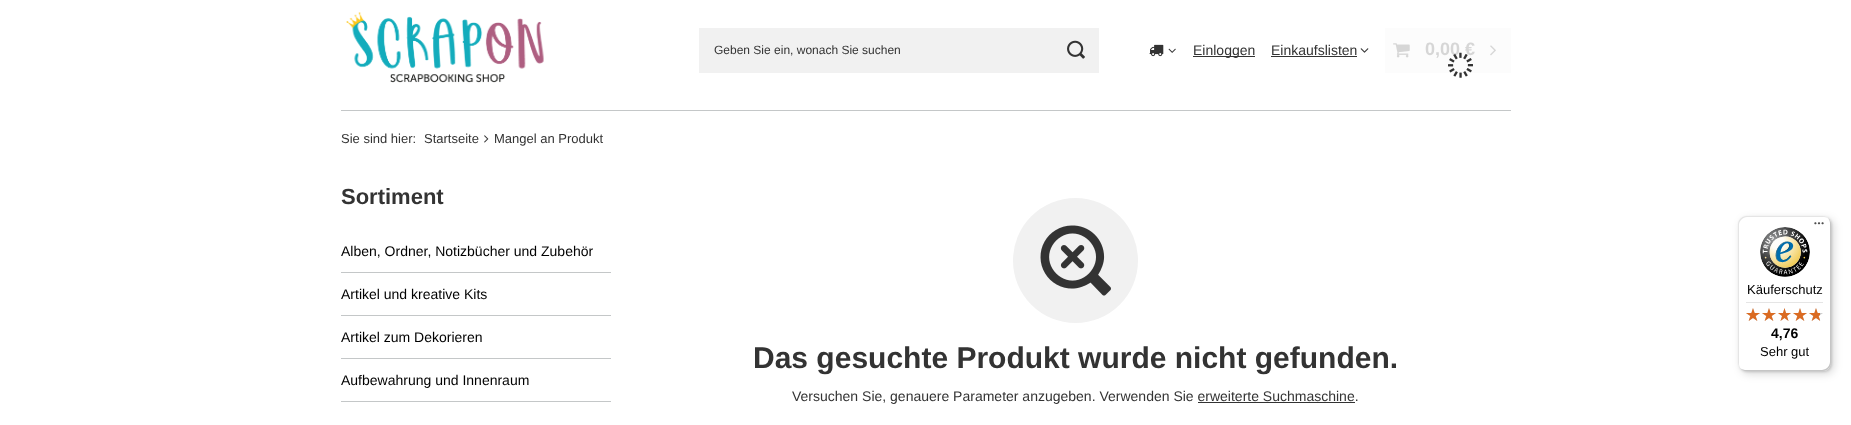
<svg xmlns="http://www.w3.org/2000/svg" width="1851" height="425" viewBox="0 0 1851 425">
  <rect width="100%" height="100%" fill="#fff"/>
  <image x="346" y="12" width="198" height="71" href="img/1.png"/>
  <path d="M699 28h400v45H699z" fill="#f1f1f1"/>
  <image x="1067" y="40" width="18" height="19" href="img/2.png"/>
  <image x="1149" y="44" width="15" height="13" href="img/3.png"/>
  <image x="1168" y="48" width="8" height="5" href="img/4.png"/>
  <path d="M1193 56h62v1H1193z" fill="#333"/>
  <path d="M1271 56h86v1H1271z" fill="#333"/>
  <image x="1360" y="48" width="9" height="5" href="img/5.png"/>
  <path d="M1385 28h126v45H1385z" fill="#fcfcfc"/>
  <image x="1393" y="43" width="17" height="15" href="img/6.png"/>
  <image x="1490" y="45" width="6" height="11" href="img/7.png"/>
  <path d="M341 110h1170v1H341z" fill="#c4c7c8"/>
  <image x="484" y="135" width="5" height="8" href="img/9.png"/>
  <path d="M341 272h270v1H341z" fill="#c4c7c8"/>
  <path d="M341 315h270v1H341z" fill="#c4c7c8"/>
  <path d="M341 358h270v1H341z" fill="#c4c7c8"/>
  <path d="M341 401h270v1H341z" fill="#c4c7c8"/>
  <circle cx="1075.5" cy="260.5" r="62.5" fill="#f1f1f1"/>
  <image x="1040" y="225" width="71" height="71" href="img/10.png"/>
  <path d="M1198 402h157v1H1198z" fill="#333"/>
  <rect x="1741" y="219" width="93" height="155" rx="8" fill="#00000026" filter="blur(4px)"/>
  <rect x="1739" y="217" width="93" height="155" rx="8" fill="#00000026" filter="blur(1px)"/>
  <rect x="1738" y="216" width="93" height="155" rx="8" fill="#fff"/>
  <path d="M1747 217H1824C1826 217 1828 218 1830 220C1828 218 1826 216 1823 216H1746C1742 216 1738 220 1738 224V363C1738 366 1740 368 1742 370C1740 368 1739 366 1739 364V225C1739 221 1743 217 1747 217Z" fill="#e5e5e5"/>
  <path d="M1739 367C1741 369 1743 371 1746 371H1823C1827 371 1831 367 1831 363V224C1831 221 1829 219 1827 217C1829 219 1830 221 1830 223V362C1830 366 1826 370 1822 370H1745C1743 370 1741 369 1739 367Z" fill="#ccc"/>
  <path d="M1740 368C1741 370 1744 371 1746 371H1823C1827 371 1831 367 1831 363V224C1831 222 1830 219 1828 218C1829 219 1830 221 1830 223V362C1830 367 1827 370 1822 370H1745C1743 370 1741 369 1740 368Z" fill="#32323233"/>
  <path d="M1830 224C1830 219 1827 216 1822 216H1823C1827 216 1831 220 1831 224V363C1831 367 1827 371 1823 371H1746C1742 371 1738 367 1738 363V362C1738 367 1741 370 1746 370H1822C1827 370 1830 367 1830 362Z" fill="#ffffff4d"/>
  <image x="1814" y="222" width="10" height="3" href="img/11.png"/>
  <image x="1760" y="227" width="50" height="50" href="img/12.png"/>
  <path d="M1746 302h77v1H1746z" fill="#e5e5e5"/>
  <image x="1746" y="308" width="14" height="13" href="img/13.png"/>
  <image x="1762" y="308" width="14" height="13" href="img/13.png"/>
  <image x="1778" y="308" width="13" height="13" href="img/14.png"/>
  <image x="1793" y="308" width="14" height="13" href="img/13.png"/>
  <image x="1809" y="308" width="14" height="13" href="img/13.png"/>
  <image x="1746" y="308" width="14" height="13" href="img/15.png"/>
  <image x="1762" y="308" width="14" height="13" href="img/15.png"/>
  <image x="1778" y="308" width="13" height="13" href="img/16.png"/>
  <image x="1793" y="308" width="14" height="13" href="img/15.png"/>
  <image x="1809" y="308" width="11" height="13" href="img/17.png"/>
  <text x="714" y="54" font-family="Liberation Sans" font-size="12" fill="#333">Geben Sie ein, wonach Sie suchen</text>
  <g font-family="Liberation Sans" font-size="14" fill="#333">
    <text x="1193" y="55">Einloggen</text>
    <text x="1271" y="55">Einkaufslisten</text>
  </g>
  <text x="1425" y="55" font-family="Liberation Sans" font-size="18" font-weight="bold" fill="#d6d6d6">0,00 €</text>
  <image x="1448" y="52" width="25" height="26" href="img/8.png"/>
  <g font-family="Liberation Sans" font-size="13" fill="#333">
    <text x="341" y="143">Sie sind hier:</text>
    <text x="424" y="143">Startseite</text>
    <text x="494" y="143">Mangel an Produkt</text>
  </g>
  <text x="341" y="204" font-family="Liberation Sans" font-size="22" font-weight="bold" fill="#333">Sortiment</text>
  <g font-family="Liberation Sans" font-size="14" fill="#000">
    <text x="341" y="256">Alben, Ordner, Notizbücher und Zubehör</text>
    <text x="341" y="299">Artikel und kreative Kits</text>
    <text x="341" y="342">Artikel zum Dekorieren</text>
    <text x="341" y="385">Aufbewahrung und Innenraum</text>
  </g>
  <text x="753" y="368" font-family="Liberation Sans" font-size="30" font-weight="bold" fill="#333">Das gesuchte Produkt wurde nicht gefunden.</text>
  <text x="792" y="401" font-family="Liberation Sans" font-size="14" fill="#333">Versuchen Sie, genauere Parameter anzugeben. Verwenden Sie erweiterte Suchmaschine.</text>
  <text x="1747" y="294" font-family="Liberation Sans" font-size="13" fill="#000">Käuferschutz</text>
  <text x="1771" y="338" font-family="Liberation Sans" font-size="14" font-weight="bold" fill="#000">4,76</text>
  <text x="1760" y="356" font-family="Liberation Sans" font-size="13" fill="#000">Sehr gut</text>
</svg>
